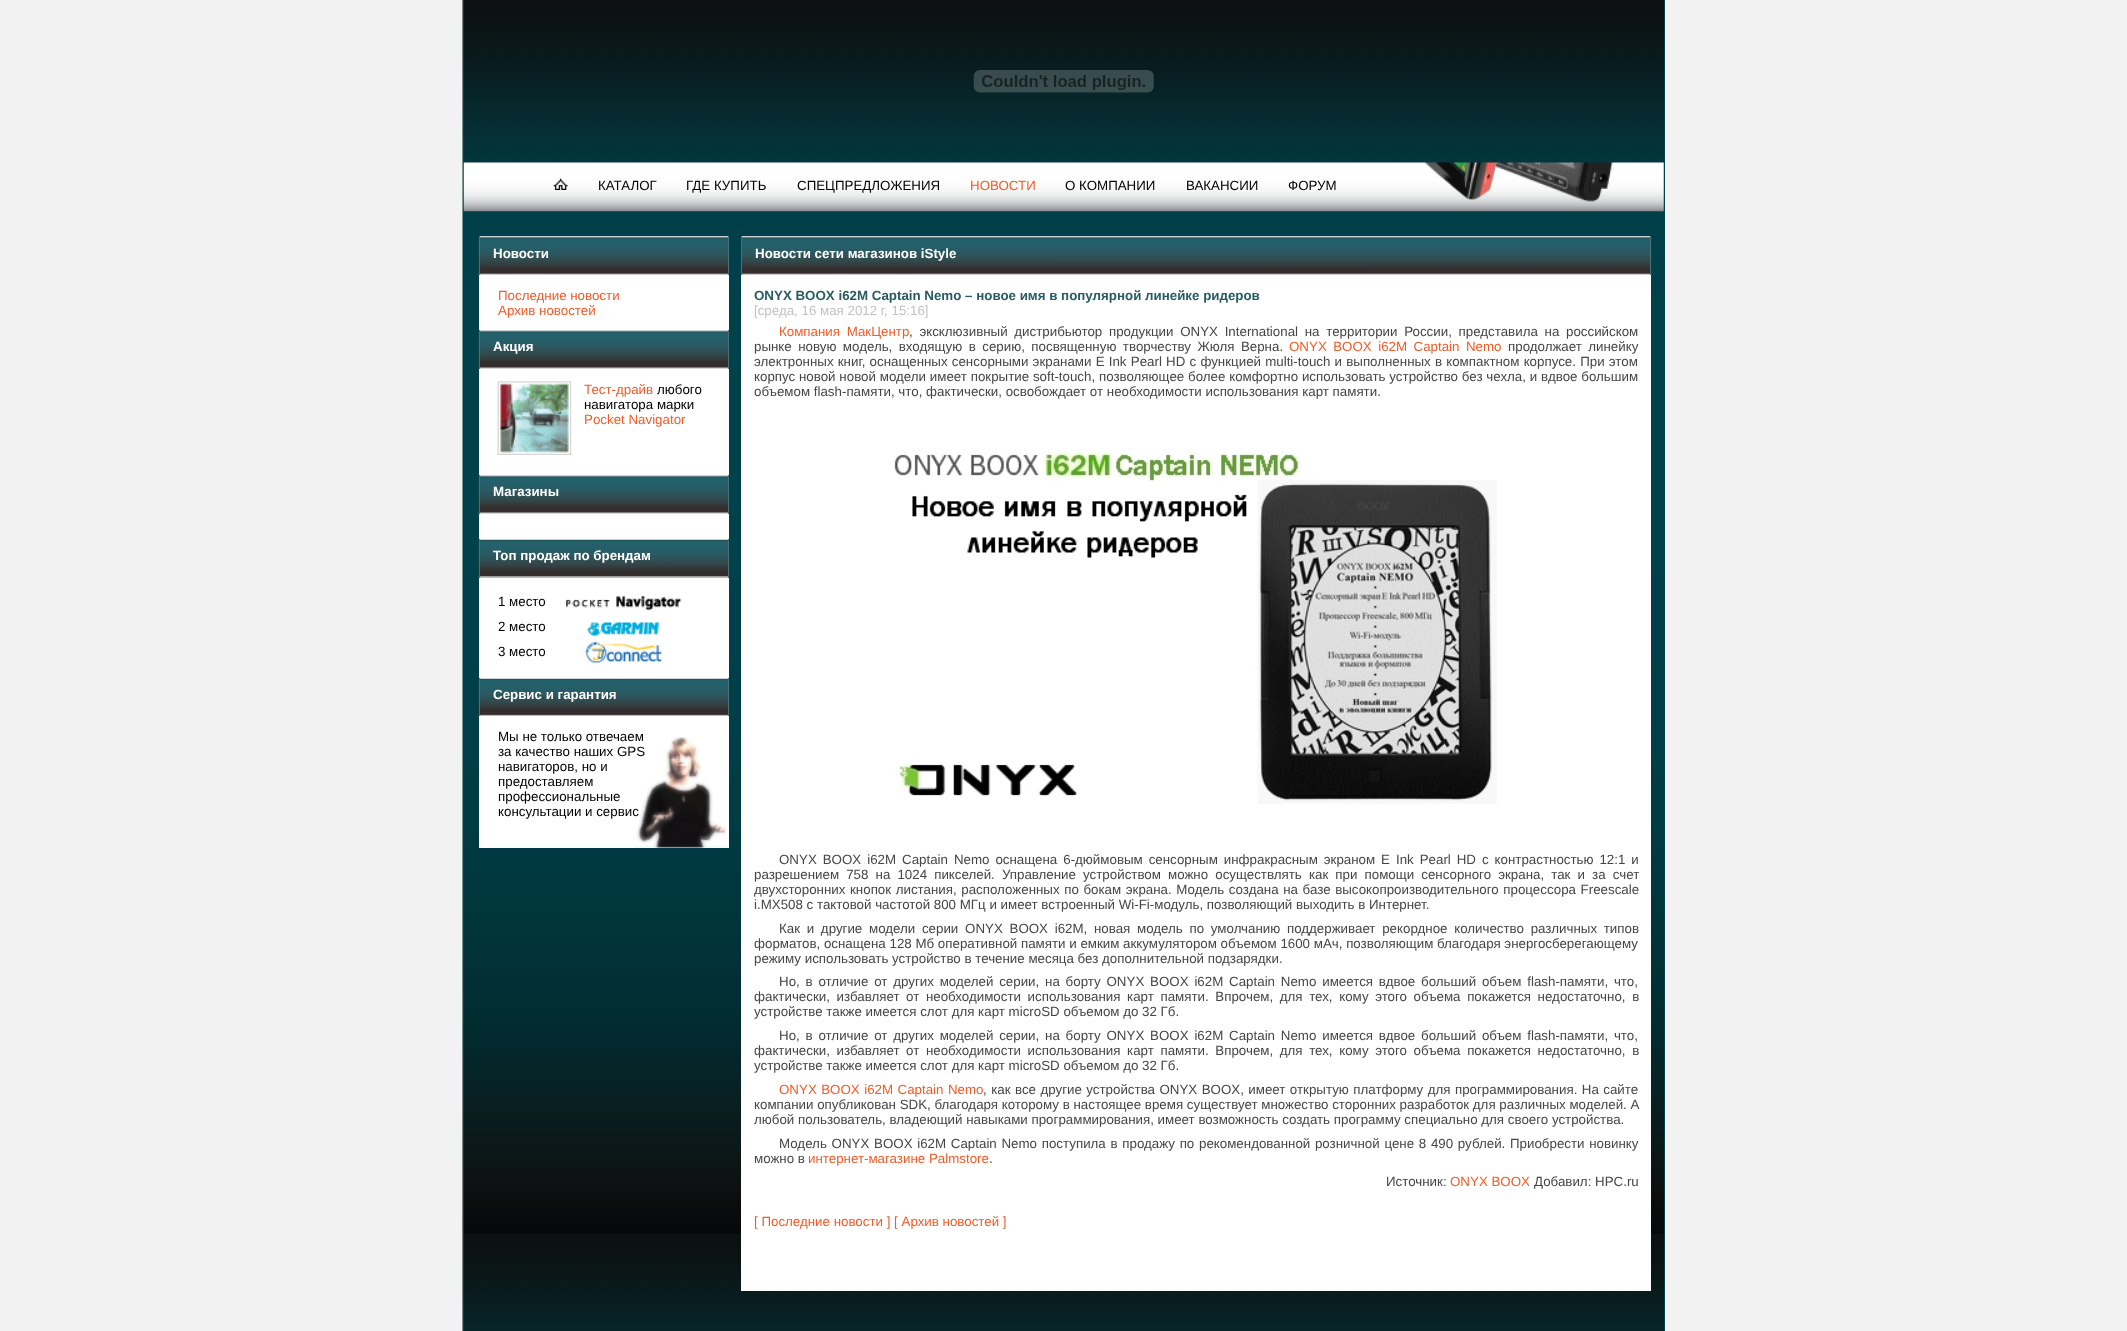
<svg xmlns="http://www.w3.org/2000/svg" width="2127" height="1331" viewBox="0 0 2127 1331">
  <rect width="100%" height="100%" fill="#f2f2f2"/>
  <image x="462" y="0" width="1202" height="1331" href="img/1.png"/>
  <path d="M1664 0h1v1331H1664z" fill="#013f48"/>
  <path d="M463 0h1v1331H463z" fill="#013f48"/>
  <image x="973" y="70" width="181" height="23" href="img/2.png"/>
  <image x="463" y="162" width="1201" height="50" href="img/3.png"/>
  <image x="553" y="178" width="15" height="12" href="img/4.png"/>
  <path d="M479 275h250v403H479z" fill="#fff"/>
  <path d="M480 237h248v1H480z" fill="#afafaf"/>
  <image x="478" y="237" width="250" height="38" href="img/5.png"/>
  <path d="M479 236h250v1H479z" fill="#cacfd3"/>
  <path d="M728 236h1v39H728z" fill="#4b7078"/>
  <path d="M479 236h1v39H479z" fill="#4b7078"/>
  <image x="478" y="331" width="250" height="38" href="img/6.png"/>
  <path d="M479 330h250v1H479z" fill="#cacfd3"/>
  <path d="M728 330h1v39H728z" fill="#4b7078"/>
  <path d="M479 330h1v39H479z" fill="#4b7078"/>
  <image x="497" y="381" width="75" height="74" href="img/7.png"/>
  <image x="478" y="476" width="250" height="38" href="img/8.png"/>
  <path d="M479 475h250v1H479z" fill="#cacfd3"/>
  <path d="M728 475h1v39H728z" fill="#4b7078"/>
  <path d="M479 475h1v39H479z" fill="#4b7078"/>
  <path d="M480 577h248v1H480z" fill="#afafaf"/>
  <image x="478" y="540" width="250" height="38" href="img/9.png"/>
  <path d="M479 539h250v1H479z" fill="#cacfd3"/>
  <path d="M728 539h1v39H728z" fill="#4b7078"/>
  <path d="M479 539h1v39H479z" fill="#4b7078"/>
  <image x="566" y="596" width="116" height="15" href="img/10.png"/>
  <image x="587" y="622" width="72" height="15" href="img/11.png"/>
  <image x="585" y="641" width="77" height="22" href="img/12.png"/>
  <image x="478" y="678" width="250" height="39" href="img/13.png"/>
  <path d="M479 678h250v1H479z" fill="#cacfd3"/>
  <path d="M728 678h1v38H728z" fill="#4b7078"/>
  <path d="M479 678h1v38H479z" fill="#4b7078"/>
  <path d="M479 716h250v132H479z" fill="#fff"/>
  <image x="635" y="737" width="94" height="111" href="img/14.png"/>
  <path d="M742 237h908v1H742z" fill="#afafaf"/>
  <image x="742" y="237" width="910" height="38" href="img/15.png"/>
  <path d="M741 236h910v1H741z" fill="#cacfd3"/>
  <path d="M1650 236h1v39H1650z" fill="#4b7078"/>
  <path d="M741 236h1v39H741z" fill="#4b7078"/>
  <path d="M741 275h910v1016H741z" fill="#fff"/>
  <image x="894" y="450" width="603" height="354" href="img/16.png"/>
  <g font-family="Liberation Sans" font-size="13.33" fill="#000">
    <text x="598" y="190">КАТАЛОГ</text>
    <text x="686" y="190">ГДЕ КУПИТЬ</text>
    <text x="797" y="190">СПЕЦПРЕДЛОЖЕНИЯ</text>
  </g>
  <text x="970" y="190" font-family="Liberation Sans" font-size="13.33" fill="#f15c28">НОВОСТИ</text>
  <g font-family="Liberation Sans" font-size="13.33" fill="#000">
    <text x="1065" y="190">О КОМПАНИИ</text>
    <text x="1186" y="190">ВАКАНСИИ</text>
    <text x="1288" y="190">ФОРУМ</text>
  </g>
  <text x="493" y="258" font-family="Liberation Sans" font-size="13.33" font-weight="bold" fill="#fff">Новости</text>
  <g font-family="Liberation Sans" font-size="13.33" fill="#f15c28">
    <text x="498" y="300">Последние новости</text>
    <text x="498" y="315">Архив новостей</text>
  </g>
  <text x="493" y="351" font-family="Liberation Sans" font-size="13.33" font-weight="bold" fill="#fff">Акция</text>
  <text x="584" y="394" font-family="Liberation Sans" font-size="13.33" fill="#f15c28">Тест-драйв</text>
  <g font-family="Liberation Sans" font-size="13.33" fill="#000">
    <text x="657" y="394">любого</text>
    <text x="584" y="409">навигатора марки</text>
  </g>
  <text x="584" y="424" font-family="Liberation Sans" font-size="13.33" fill="#f15c28">Pocket Navigator</text>
  <g font-family="Liberation Sans" font-size="13.33" font-weight="bold" fill="#fff">
    <text x="493" y="496">Магазины</text>
    <text x="493" y="560">Топ продаж по брендам</text>
  </g>
  <g font-family="Liberation Sans" font-size="13.33" fill="#000">
    <text x="498" y="606">1 место</text>
    <text x="498" y="631">2 место</text>
    <text x="498" y="656">3 место</text>
  </g>
  <text x="493" y="699" font-family="Liberation Sans" font-size="13.33" font-weight="bold" fill="#fff">Сервис и гарантия</text>
  <g font-family="Liberation Sans" font-size="13.33" fill="#000">
    <text x="498" y="741">Мы не только отвечаем</text>
    <text x="498" y="756">за качество наших GPS</text>
    <text x="498" y="771">навигаторов, но и</text>
    <text x="498" y="786">предоставляем</text>
    <text x="498" y="801">профессиональные</text>
    <text x="498" y="816">консультации и сервис</text>
  </g>
  <text x="755" y="258" font-family="Liberation Sans" font-size="13.33" font-weight="bold" fill="#fff">Новости сети магазинов iStyle</text>
  <text x="754" y="300" font-family="Liberation Sans" font-size="13.33" font-weight="bold" fill="#285c65">ONYX BOOX i62M Captain Nemo – новое имя в популярной линейке ридеров</text>
  <text x="754" y="315" font-family="Liberation Sans" font-size="13.33" fill="#c2c2c2">[среда, 16 мая 2012 г, 15:16]</text>
  <text x="779" y="336" word-spacing="3" font-family="Liberation Sans" font-size="13.33" fill="#f15c28">Компания МакЦентр</text>
  <g font-family="Liberation Sans" font-size="13.33" fill="#464646">
    <text x="909" y="336" word-spacing="3">, эксклюзивный дистрибьютор продукции ONYX International на территории России, представила на российском</text>
    <text x="754" y="351" word-spacing="2.75">рынке новую модель, входящую в серию, посвященную творчеству Жюля Верна.</text>
  </g>
  <text x="1289" y="351" word-spacing="2.75" font-family="Liberation Sans" font-size="13.33" fill="#f15c28">ONYX BOOX i62M Captain Nemo</text>
  <g font-family="Liberation Sans" font-size="13.33" fill="#464646">
    <text x="1508" y="351" word-spacing="2.75">продолжает линейку</text>
    <text x="754" y="366" word-spacing="0.5">электронных книг, оснащенных сенсорными экранами E Ink Pearl HD с функцией multi-touch и выполненных в компактном корпусе. При этом</text>
    <text x="754" y="381" word-spacing="0.1">корпус новой новой модели имеет покрытие soft-touch, позволяющее более комфортно использовать устройство без чехла, и вдвое большим</text>
    <text x="754" y="396">объемом flash-памяти, что, фактически, освобождает от необходимости использования карт памяти.</text>
    <text x="779" y="864" word-spacing="2.25">ONYX BOOX i62M Captain Nemo оснащена 6-дюймовым сенсорным инфракрасным экраном E Ink Pearl HD с контрастностью 12:1 и</text>
    <text x="754" y="879" word-spacing="3.4">разрешением 758 на 1024 пикселей. Управление устройством можно осуществлять как при помощи сенсорного экрана, так и за счет</text>
    <text x="754" y="894" word-spacing="0.9">двухсторонних кнопок листания, расположенных по бокам экрана. Модель создана на базе высокопроизводительного процессора Freescale</text>
    <text x="754" y="909">i.MX508 с тактовой частотой 800 МГц и имеет встроенный Wi-Fi-модуль, позволяющий выходить в Интернет.</text>
    <text x="779" y="933" word-spacing="3">Как и другие модели серии ONYX BOOX i62M, новая модель по умолчанию поддерживает рекордное количество различных типов</text>
    <text x="754" y="948">форматов, оснащена 128 Мб оперативной памяти и емким аккумулятором объемом 1600 мАч, позволяющим благодаря энергосберегающему</text>
    <text x="754" y="963">режиму использовать устройство в течение месяца без дополнительной подзарядки.</text>
    <text x="779" y="986" word-spacing="2.1">Но, в отличие от других моделей серии, на борту ONYX BOOX i62M Captain Nemo имеется вдвое больший объем flash-памяти, что,</text>
    <text x="754" y="1001" word-spacing="2.9">фактически, избавляет от необходимости использования карт памяти. Впрочем, для тех, кому этого объема покажется недостаточно, в</text>
    <text x="754" y="1016">устройстве также имеется слот для карт microSD объемом до 32 Гб.</text>
    <text x="779" y="1040" word-spacing="2.1">Но, в отличие от других моделей серии, на борту ONYX BOOX i62M Captain Nemo имеется вдвое больший объем flash-памяти, что,</text>
    <text x="754" y="1055" word-spacing="2.9">фактически, избавляет от необходимости использования карт памяти. Впрочем, для тех, кому этого объема покажется недостаточно, в</text>
    <text x="754" y="1070">устройстве также имеется слот для карт microSD объемом до 32 Гб.</text>
  </g>
  <text x="779" y="1094" word-spacing="0.75" font-family="Liberation Sans" font-size="13.33" fill="#f15c28">ONYX BOOX i62M Captain Nemo</text>
  <g font-family="Liberation Sans" font-size="13.33" fill="#464646">
    <text x="983" y="1094" word-spacing="0.75">, как все другие устройства ONYX BOOX, имеет открытую платформу для программирования. На сайте</text>
    <text x="754" y="1109">компании опубликован SDK, благодаря которому в настоящее время существует множество сторонних разработок для различных моделей. А</text>
    <text x="754" y="1124">любой пользователь, владеющий навыками программирования, имеет возможность создать программу специально для своего устройства.</text>
    <text x="779" y="1148" word-spacing="1">Модель ONYX BOOX i62M Captain Nemo поступила в продажу по рекомендованной розничной цене 8 490 рублей. Приобрести новинку</text>
    <text x="754" y="1163">можно в</text>
  </g>
  <text x="808" y="1163" font-family="Liberation Sans" font-size="13.33" fill="#f15c28">интернет-магазине Palmstore</text>
  <g font-family="Liberation Sans" font-size="13.33" fill="#464646">
    <text x="989" y="1163">.</text>
    <text x="1386" y="1186">Источник:</text>
  </g>
  <text x="1450" y="1186" font-family="Liberation Sans" font-size="13.33" fill="#f15c28">ONYX BOOX</text>
  <text x="1534" y="1186" font-family="Liberation Sans" font-size="13.33" fill="#464646">Добавил: HPC.ru</text>
  <text x="754" y="1226" font-family="Liberation Sans" font-size="13.33" fill="#f15c28">[ Последние новости ] [ Архив новостей ]</text>
</svg>
